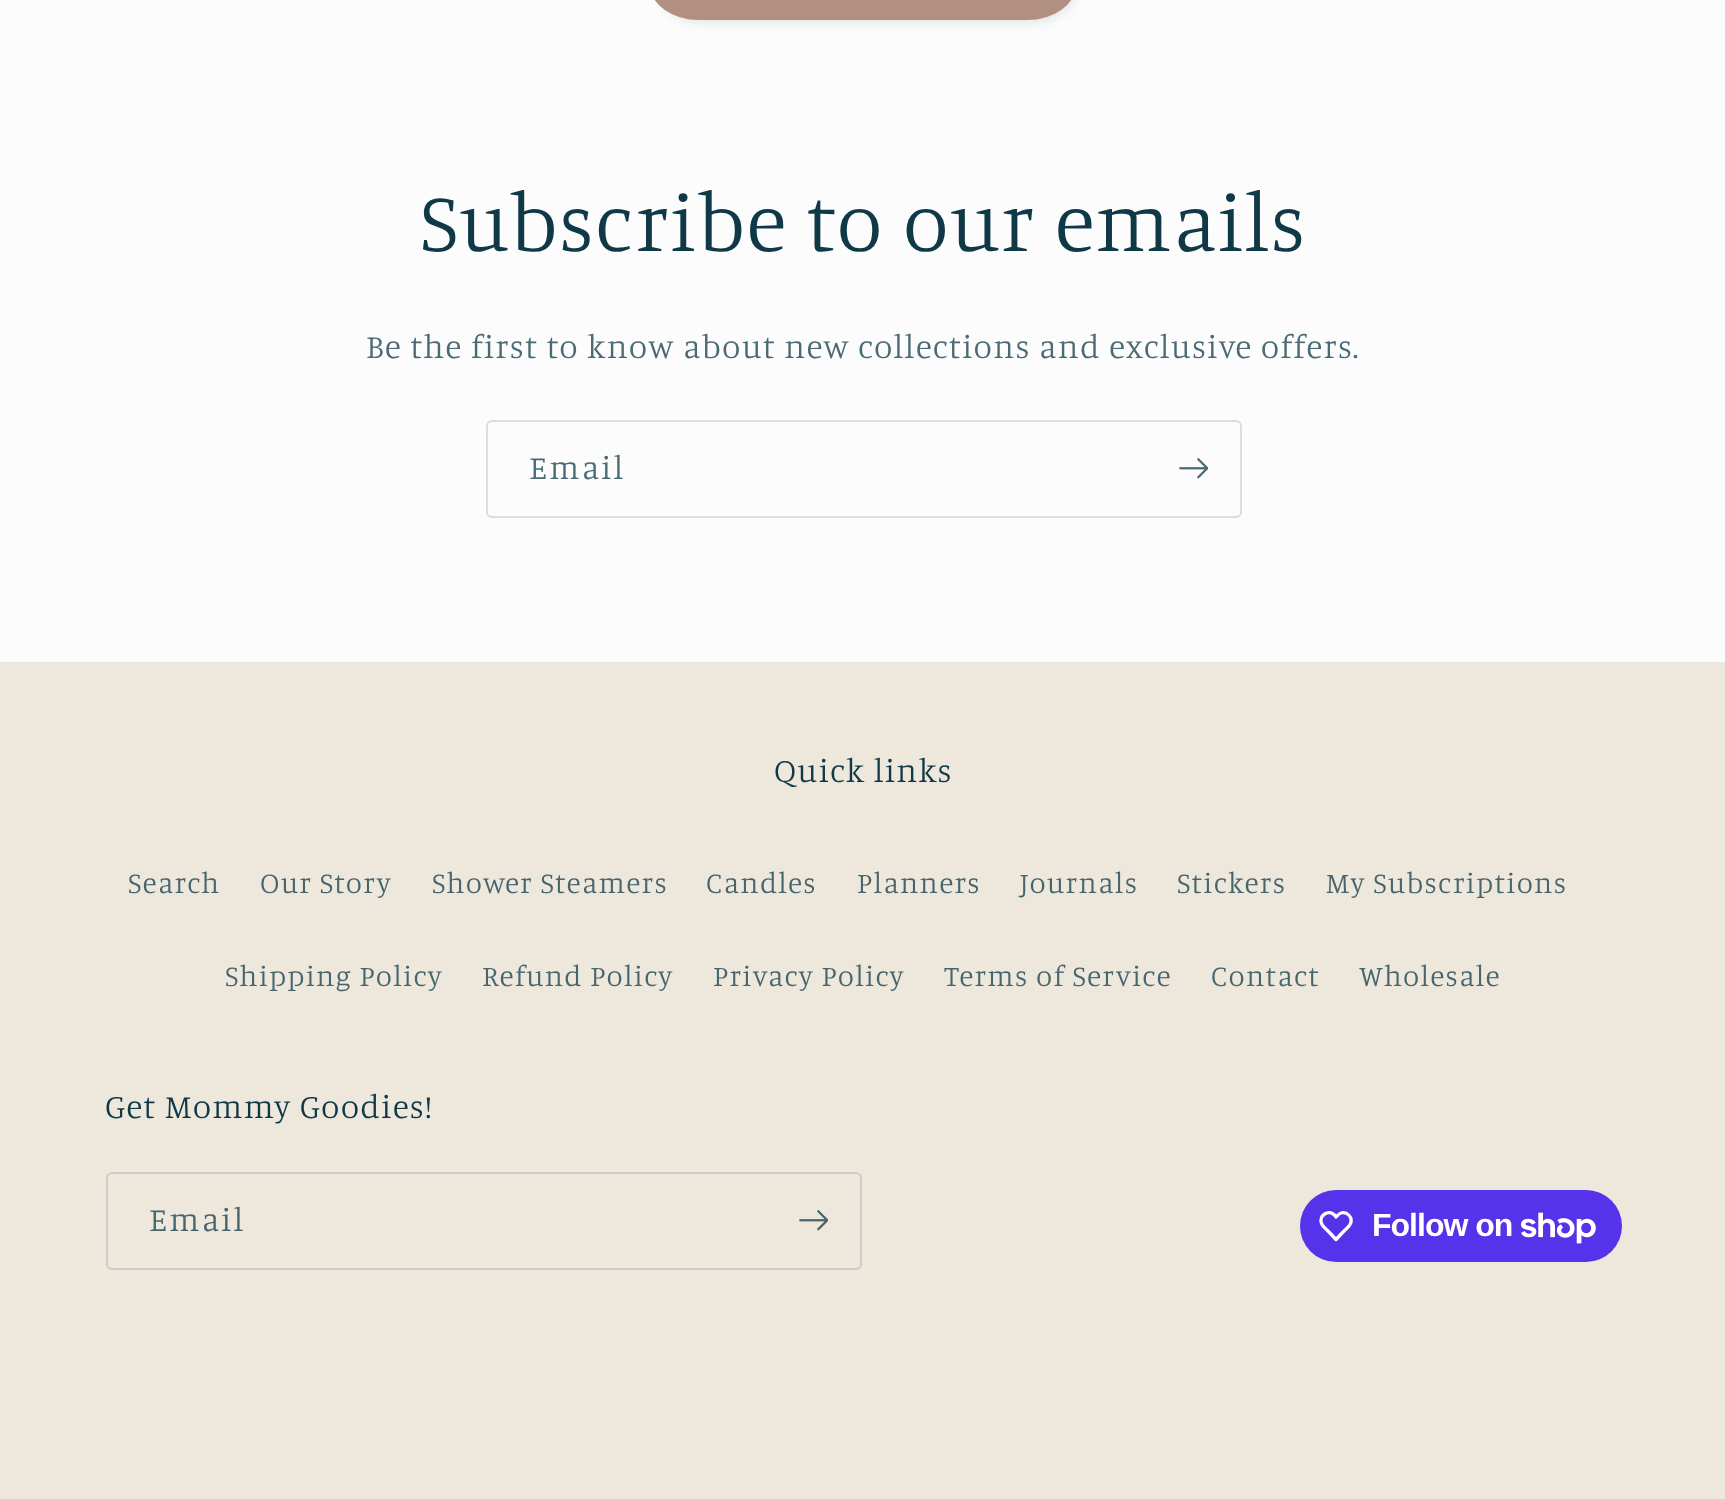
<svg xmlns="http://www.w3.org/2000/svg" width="1725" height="1499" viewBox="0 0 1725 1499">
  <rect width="100%" height="100%" fill="#fcfcfc"/>
  <rect x="654" y="-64" width="426" height="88" rx="49" fill="#1039481a" filter="blur(5px)"/>
  <rect x="651" y="-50" width="424" height="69" rx="48" fill="#b19081" stroke="#b19081" stroke-width="2"/>
  <rect x="487" y="421" width="754" height="96" rx="5" fill="none" stroke="#d9dfe1" stroke-width="2"/>
  <image x="1179" y="458" width="29" height="21" href="img/1.png"/>
  <path d="M0 662h1725v837H0z" fill="#ede7dc"/>
  <rect x="107" y="1173" width="754" height="96" rx="5" fill="none" stroke="#cccdc6" stroke-width="2"/>
  <image x="799" y="1210" width="29" height="21" href="img/2.png"/>
  <rect x="1300" y="1190" width="322" height="72" rx="36" fill="#5433eb"/>
  <path d="M1334.5 1215L1336 1217C1337.5 1215.5 1339 1213.5 1341 1213C1347 1211 1353 1217.5 1350.5 1223.5C1349.5 1226.5 1346.5 1228.5 1344.5 1230.5L1336 1239.5L1327.5 1230.5C1325.5 1228.5 1322.5 1226.5 1321.5 1223.5C1318.5 1215.5 1328.5 1209 1334.5 1215Z" fill="none" stroke="#fff" stroke-width="3.3" stroke-linejoin="round"/>
  <image x="1521" y="1212" width="75" height="32" href="img/3.png"/>
  <text x="420" y="251" font-family="Manuale" font-size="84" font-weight="300" letter-spacing="1.25" fill="#103948">Subscribe to our emails</text>
  <text x="366" y="358" font-family="Manuale" font-size="33.6" font-weight="300" letter-spacing="1.25" fill="#4b6a75">Be the first to know about new collections and exclusive offers.</text>
  <text x="529" y="479" font-family="Manuale" font-size="33.6" font-weight="300" letter-spacing="2" fill="#4b6a75">Email</text>
  <text x="774" y="782" font-family="Manuale" font-size="33.6" font-weight="300" letter-spacing="1.25" fill="#103948">Quick links</text>
  <g font-family="Manuale" font-size="29.5" font-weight="300" letter-spacing="1.25" fill="#47656d">
    <text x="128" y="893">Search</text>
    <text x="260" y="893">Our Story</text>
    <text x="432" y="893">Shower Steamers</text>
    <text x="706" y="893">Candles</text>
    <text x="857" y="893">Planners</text>
    <text x="1020" y="893">Journals</text>
    <text x="1177" y="893">Stickers</text>
    <text x="1326" y="893">My Subscriptions</text>
    <text x="225" y="986">Shipping Policy</text>
    <text x="482" y="986">Refund Policy</text>
    <text x="713" y="986">Privacy Policy</text>
    <text x="944" y="986">Terms of Service</text>
    <text x="1211" y="986">Contact</text>
    <text x="1359" y="986">Wholesale</text>
  </g>
  <text x="105" y="1118" font-family="Manuale" font-size="33.6" font-weight="300" letter-spacing="1.25" fill="#103948">Get Mommy Goodies!</text>
  <text x="149" y="1231" font-family="Manuale" font-size="33.6" font-weight="300" letter-spacing="2" fill="#47656d">Email</text>
  <text x="1372" y="1236" font-family="Liberation Sans" font-size="32" font-weight="bold" letter-spacing="-1" fill="#fff">Follow on</text>
</svg>
